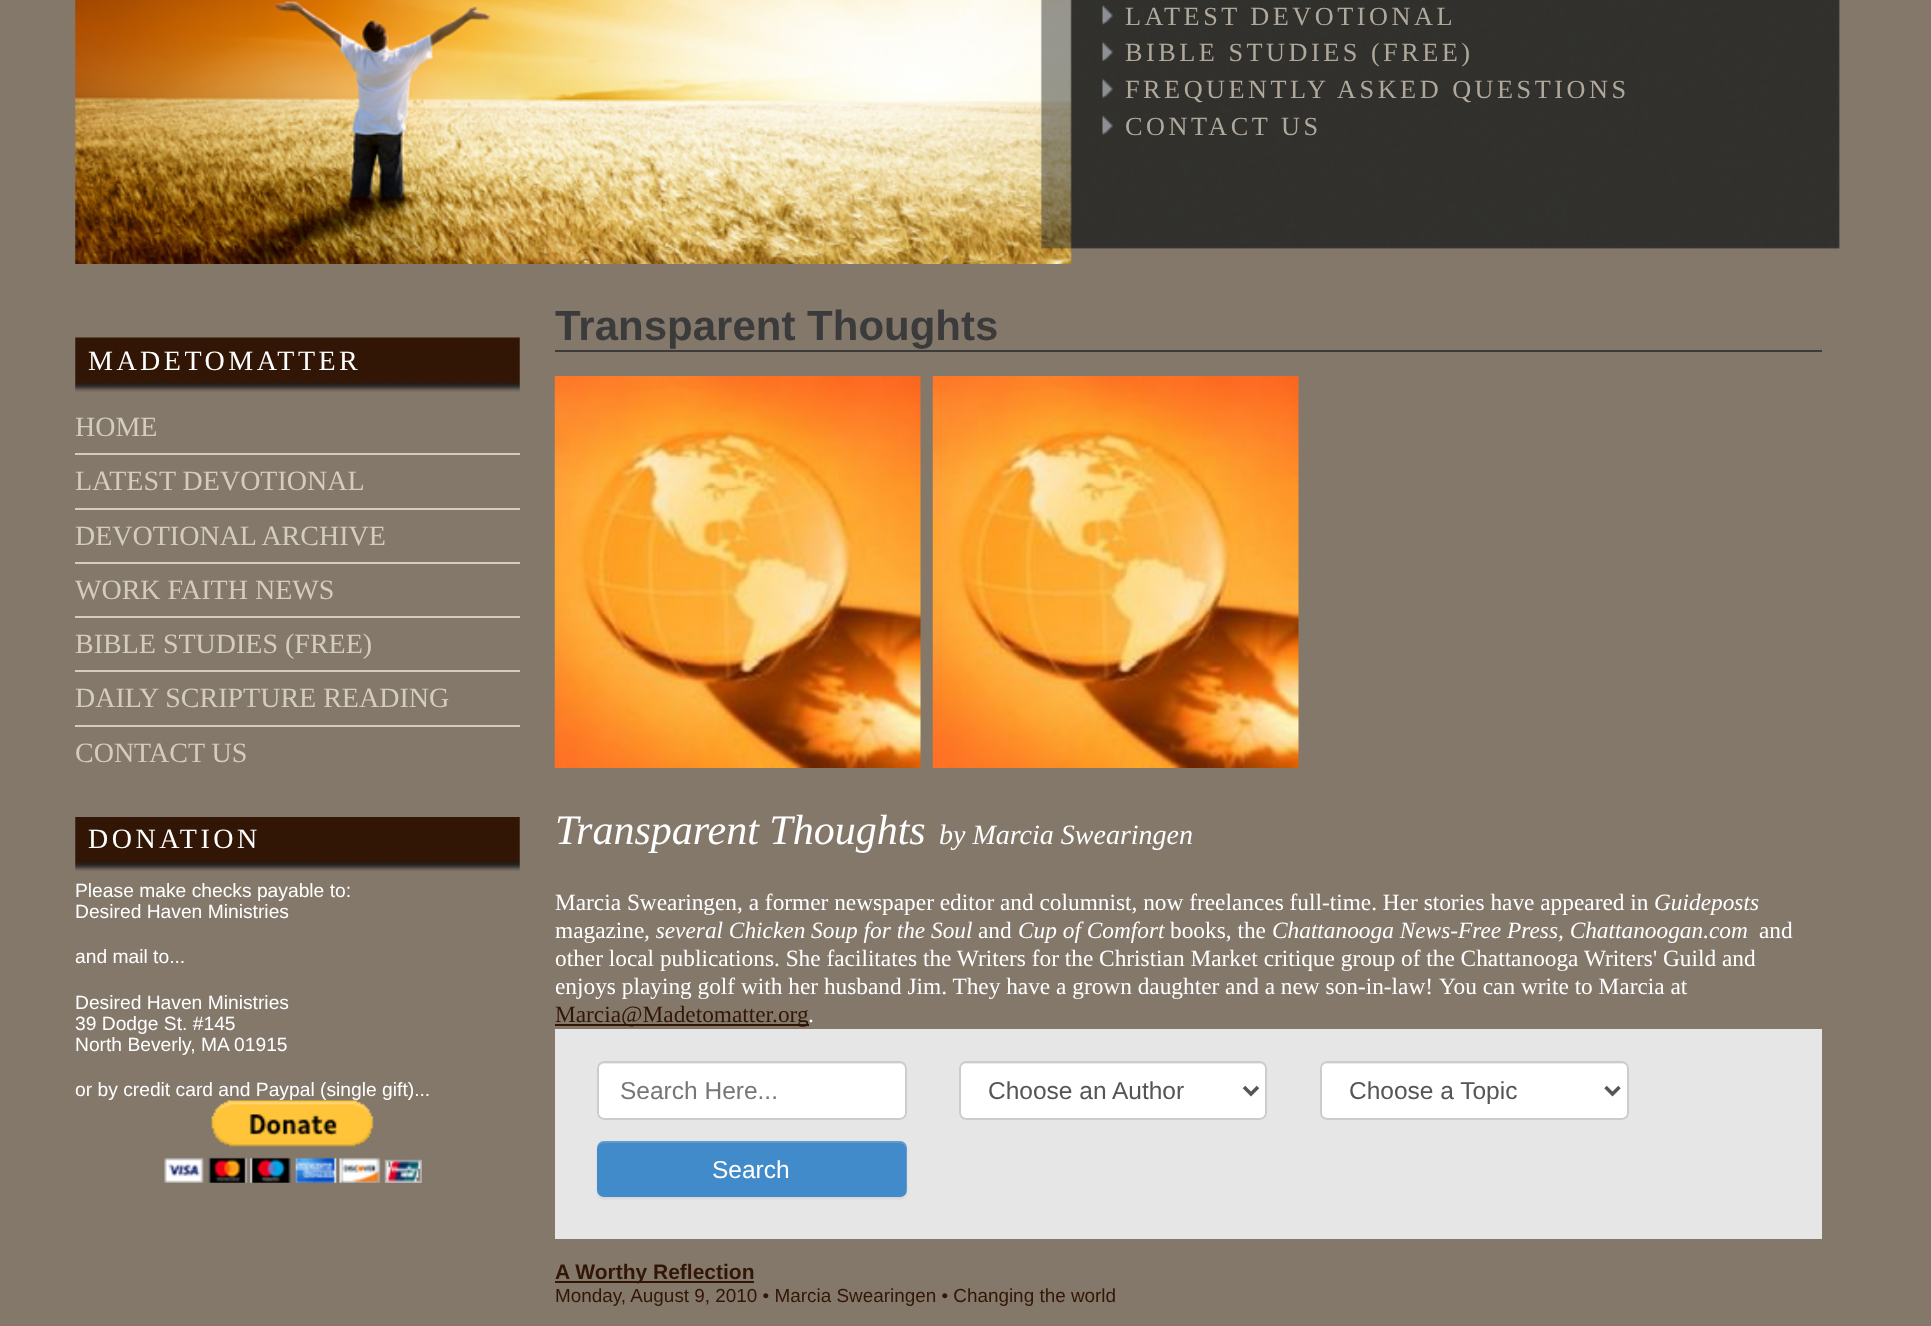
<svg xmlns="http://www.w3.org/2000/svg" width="1931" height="1326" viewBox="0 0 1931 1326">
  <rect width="100%" height="100%" fill="#84786b"/>
  <image x="75" y="0" width="1765" height="264" href="img/1.png"/>
  <image x="1102" y="5" width="11" height="20" href="img/2.png"/>
  <image x="1102" y="41" width="11" height="20" href="img/3.png"/>
  <image x="1102" y="78" width="11" height="20" href="img/4.png"/>
  <image x="1102" y="115" width="11" height="20" href="img/5.png"/>
  <image x="75" y="337" width="445" height="55" href="img/6.png"/>
  <path d="M75 453h445v2H75z" fill="#d4cdbf"/>
  <path d="M75 508h445v2H75z" fill="#d4cdbf"/>
  <path d="M75 562h445v2H75z" fill="#d4cdbf"/>
  <path d="M75 616h445v2H75z" fill="#d4cdbf"/>
  <path d="M75 670h445v2H75z" fill="#d4cdbf"/>
  <path d="M75 725h445v2H75z" fill="#d4cdbf"/>
  <image x="75" y="817" width="445" height="54" href="img/7.png"/>
  <image x="164" y="1100" width="258" height="83" href="img/8.png"/>
  <path d="M555 350h1267v2H555z" fill="#3b3b3b"/>
  <image x="554" y="376" width="367" height="392" href="img/9.png"/>
  <image x="932" y="376" width="367" height="392" href="img/9.png"/>
  <path d="M555 1024h254v2H555z" fill="#321605"/>
  <path d="M555 1029h1267v210H555z" fill="#e6e6e6"/>
  <rect x="597" y="1061" width="310" height="59" rx="7" fill="#fff"/>
  <path d="M604 1064H900C902 1064 905 1066 905 1069V1067C905 1064 903 1062 900 1062H604C602 1062 599 1064 599 1066C600 1065 602 1064 604 1064Z" fill="#ececec"/>
  <rect x="598" y="1062" width="308" height="57" rx="6" fill="none" stroke="#ccc" stroke-width="2"/>
  <rect x="959" y="1061" width="308" height="59" rx="7" fill="#fff"/>
  <path d="M966 1064H1260C1263 1064 1265 1066 1265 1069C1265 1066 1264 1062 1260 1062H966C962 1062 961 1066 961 1069C961 1066 963 1064 966 1064Z" fill="#ececec"/>
  <rect x="960" y="1062" width="306" height="57" rx="6" fill="none" stroke="#ccc" stroke-width="2"/>
  <path d="M1244 1087L1251 1094L1258 1087" fill="none" stroke="#555" stroke-width="3.5"/>
  <rect x="1320" y="1061" width="309" height="59" rx="7" fill="#fff"/>
  <path d="M1326 1064H1622C1625 1064 1628 1066 1628 1069V1067C1628 1064 1626 1062 1623 1062H1326C1323 1062 1321 1064 1321 1067V1069C1321 1066 1324 1064 1326 1064Z" fill="#ececec"/>
  <rect x="1321" y="1062" width="307" height="57" rx="6" fill="none" stroke="#ccc" stroke-width="2"/>
  <path d="M1605.5 1087L1612.5 1094L1619.5 1087" fill="none" stroke="#555" stroke-width="3.5"/>
  <rect x="597" y="1143" width="310" height="56" rx="7" fill="#00000012" filter="blur(1px)"/>
  <rect x="597" y="1141" width="310" height="56" rx="7" fill="#428bca"/>
  <path d="M604 1143H900C903 1143 906 1146 906 1150V1194C907 1193 907 1191 907 1190V1148C907 1144 904 1141 900 1141H604C600 1141 597 1144 597 1148V1150C597 1146 600 1143 604 1143Z" fill="#ffffff26"/>
  <path d="M555 1281h199v2H555z" fill="#321605"/>
  <g font-family="Liberation Serif" font-size="26.25" letter-spacing="3.5" fill="#b0a99b">
    <text x="1125" y="25">LATEST DEVOTIONAL</text>
    <text x="1125" y="61">BIBLE STUDIES (FREE)</text>
    <text x="1125" y="98">FREQUENTLY ASKED QUESTIONS</text>
    <text x="1125" y="135">CONTACT US</text>
  </g>
  <text x="88" y="370" font-family="Liberation Serif" font-size="28" letter-spacing="3.5" fill="#fff">MADETOMATTER</text>
  <g font-family="Liberation Serif" font-size="28" fill="#d4cdbf">
    <text x="75" y="436">HOME</text>
    <text x="75" y="490">LATEST DEVOTIONAL</text>
    <text x="75" y="545">DEVOTIONAL ARCHIVE</text>
    <text x="75" y="599">WORK FAITH NEWS</text>
    <text x="75" y="653">BIBLE STUDIES (FREE)</text>
    <text x="75" y="707">DAILY SCRIPTURE READING</text>
    <text x="75" y="762">CONTACT US</text>
  </g>
  <text x="88" y="848" font-family="Liberation Serif" font-size="28" letter-spacing="3.5" fill="#fff">DONATION</text>
  <g font-family="Liberation Sans" font-size="19.25" fill="#fff">
    <text x="75" y="897">Please make checks payable to:</text>
    <text x="75" y="918">Desired Haven Ministries</text>
    <text x="75" y="963">and mail to...</text>
    <text x="75" y="1009">Desired Haven Ministries</text>
    <text x="75" y="1030">39 Dodge St. #145</text>
    <text x="75" y="1051">North Beverly, MA 01915</text>
    <text x="75" y="1096">or by credit card and Paypal (single gift)...</text>
  </g>
  <text x="555" y="340" font-family="Liberation Sans" font-size="42" font-weight="bold" fill="#3b3b3b">Transparent Thoughts</text>
  <text x="555" y="844" font-family="Liberation Serif" font-size="42" font-style="italic" fill="#fff">Transparent Thoughts</text>
  <text x="939" y="844" font-family="Liberation Serif" font-size="28" font-style="italic" fill="#fff">by Marcia Swearingen</text>
  <text x="555" y="910" font-family="Liberation Serif" font-size="23.33" fill="#fff">Marcia Swearingen, a former newspaper editor and columnist, now freelances full-time. Her stories have appeared in</text>
  <text x="1654" y="910" font-family="Liberation Serif" font-size="23.33" font-style="italic" fill="#fff">Guideposts</text>
  <text x="555" y="938" font-family="Liberation Serif" font-size="23.33" fill="#fff">magazine</text>
  <text x="644" y="938" font-family="Liberation Serif" font-size="23.33" font-style="italic" fill="#fff">, several Chicken Soup for the Soul</text>
  <text x="978" y="938" font-family="Liberation Serif" font-size="23.33" fill="#fff">and</text>
  <text x="1018" y="938" font-family="Liberation Serif" font-size="23.33" font-style="italic" fill="#fff">Cup of Comfort</text>
  <text x="1170" y="938" font-family="Liberation Serif" font-size="23.33" fill="#fff">books, the</text>
  <text x="1272" y="938" font-family="Liberation Serif" font-size="23.33" font-style="italic" fill="#fff">Chattanooga News-Free Press, Chattanoogan.com</text>
  <g font-family="Liberation Serif" font-size="23.33" fill="#fff">
    <text x="1759" y="938">and</text>
    <text x="555" y="966">other local publications. She facilitates the Writers for the Christian Market critique group of the Chattanooga Writers' Guild and</text>
    <text x="555" y="994">enjoys playing golf with her husband Jim. They have a grown daughter and a new son-in-law!</text>
    <text x="1439" y="994">You can write to Marcia at</text>
  </g>
  <text x="555" y="1022" font-family="Liberation Serif" font-size="23.33" fill="#321605">Marcia@Madetomatter.org</text>
  <text x="808" y="1022" font-family="Liberation Serif" font-size="23.33" fill="#fff">.</text>
  <text x="620" y="1099" font-family="Liberation Sans" font-size="24.5" fill="#777">Search Here...</text>
  <g font-family="Liberation Sans" font-size="24.5" fill="#555">
    <text x="988" y="1099">Choose an Author</text>
    <text x="1349" y="1099">Choose a Topic</text>
  </g>
  <text x="712" y="1178" font-family="Liberation Sans" font-size="24.5" fill="#fff">Search</text>
  <text x="555" y="1279" font-family="Liberation Sans" font-size="21" font-weight="bold" fill="#321605">A Worthy Reflection</text>
  <text x="555" y="1302" font-family="Liberation Sans" font-size="18.9" fill="#321605">Monday, August 9, 2010 • Marcia Swearingen • Changing the world</text>
</svg>
